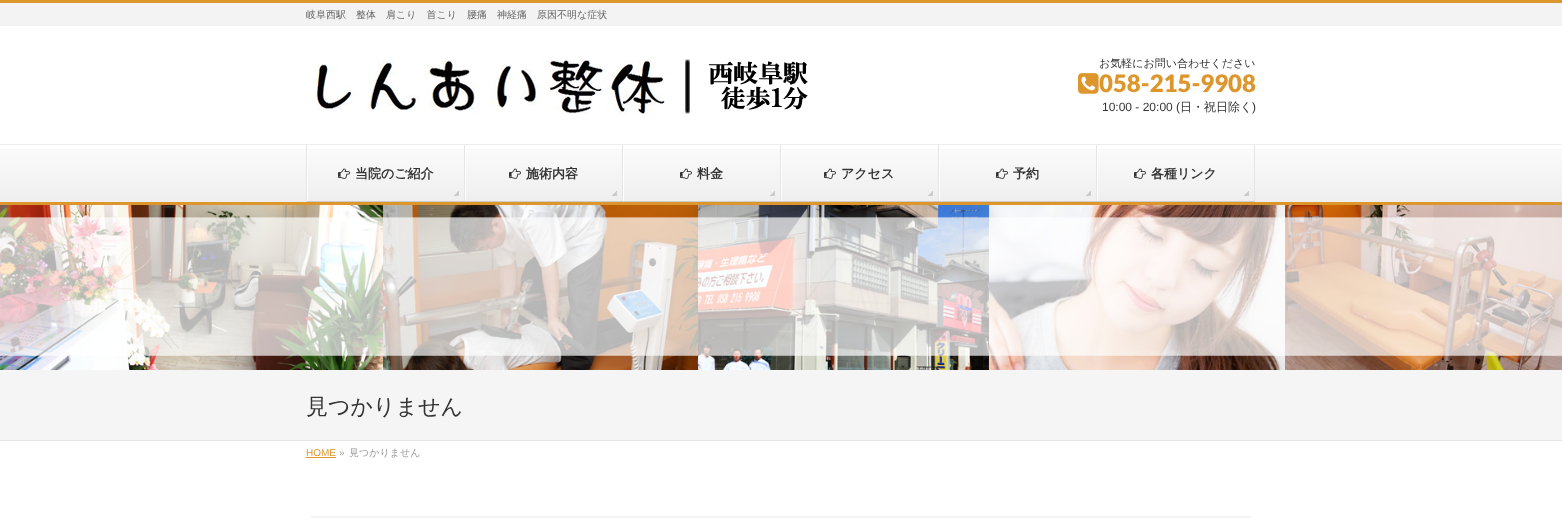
<svg xmlns="http://www.w3.org/2000/svg" width="1562" height="518" viewBox="0 0 1562 518">
  <rect width="100%" height="100%" fill="#fff"/>
  <path d="M0 3h1562v23H0z" fill="#f3f3f3"/>
  <path d="M0 0h1562v3H0z" fill="#dd962c"/>
  <image x="316" y="59" width="492" height="55" href="img/1.png"/>
  <image x="1078" y="73" width="21" height="21" href="img/2.png"/>
  <image x="0" y="149" width="1562" height="53" href="img/3.png"/>
  <path d="M0 144h1562v1H0z" fill="#eee"/>
  <path d="M0 202h1562v3H0z" fill="#dd962c"/>
  <path d="M306 145h1v57H306z" fill="#e5e5e5"/>
  <path d="M307 145h1v57H307z" fill="#fff"/>
  <image x="454" y="191" width="5" height="5" href="img/4.png"/>
  <path d="M464 145h1v57H464z" fill="#e5e5e5"/>
  <path d="M307 201h158v1H307z" fill="#ccc"/>
  <image x="338" y="168" width="12" height="11" href="img/5.png"/>
  <path d="M465 145h1v57H465z" fill="#fff"/>
  <image x="612" y="191" width="5" height="5" href="img/4.png"/>
  <path d="M622 145h1v57H622z" fill="#e5e5e5"/>
  <path d="M465 201h158v1H465z" fill="#ccc"/>
  <image x="509" y="168" width="12" height="11" href="img/5.png"/>
  <path d="M623 145h1v57H623z" fill="#fff"/>
  <image x="770" y="191" width="5" height="5" href="img/4.png"/>
  <path d="M780 145h1v57H780z" fill="#e5e5e5"/>
  <path d="M623 201h158v1H623z" fill="#ccc"/>
  <image x="680" y="168" width="12" height="11" href="img/5.png"/>
  <path d="M781 145h1v57H781z" fill="#fff"/>
  <image x="928" y="191" width="5" height="5" href="img/4.png"/>
  <path d="M938 145h1v57H938z" fill="#e5e5e5"/>
  <path d="M781 201h158v1H781z" fill="#ccc"/>
  <image x="824" y="168" width="12" height="11" href="img/5.png"/>
  <path d="M939 145h1v57H939z" fill="#fff"/>
  <image x="1086" y="191" width="5" height="5" href="img/4.png"/>
  <path d="M1096 145h1v57H1096z" fill="#e5e5e5"/>
  <path d="M939 201h158v1H939z" fill="#ccc"/>
  <image x="996" y="168" width="12" height="11" href="img/5.png"/>
  <path d="M1097 145h1v57H1097z" fill="#fff"/>
  <image x="1244" y="191" width="5" height="5" href="img/4.png"/>
  <path d="M1254 145h1v57H1254z" fill="#e5e5e5"/>
  <path d="M1097 201h158v1H1097z" fill="#ccc"/>
  <image x="1134" y="168" width="12" height="11" href="img/5.png"/>
  <image x="0" y="205" width="1562" height="165" href="img/6.png"/>
  <path d="M0 370h1562v70H0z" fill="#f5f5f5"/>
  <path d="M0 440h1562v1H0z" fill="#e5e5e5"/>
  <path d="M306 457h30v1H306z" fill="#dd962c"/>
  <path d="M311 516h940v2H311z" fill="#f3f3f3"/>
  <text x="306" y="18" font-family="WenQuanYi Zen Hei" font-size="10" font-weight="500" fill="#666">岐阜西駅　整体　肩こり　首こり　腰痛　神経痛　原因不明な症状</text>
  <text x="1099" y="67" font-family="WenQuanYi Zen Hei" font-size="11" font-weight="500" fill="#333">お気軽にお問い合わせください</text>
  <text x="1099" y="92" font-family="Lato" font-size="24" font-weight="900" fill="#dd962c">058-215-9908</text>
  <text x="1102" y="111" font-family="Liberation Sans" font-size="12" fill="#333">10:00 - 20:00 (</text>
  <text x="1180" y="111" font-family="WenQuanYi Zen Hei" font-size="12" font-weight="500" fill="#333">日・祝日除く</text>
  <text x="1252" y="111" font-family="Liberation Sans" font-size="12" fill="#333">)</text>
  <g font-family="WenQuanYi Zen Hei" font-size="13" font-weight="bold" fill="#333">
    <text x="355" y="178">当院のご紹介</text>
    <text x="526" y="178">施術内容</text>
    <text x="697" y="178">料金</text>
    <text x="841" y="178">アクセス</text>
    <text x="1013" y="178">予約</text>
    <text x="1151" y="178">各種リンク</text>
  </g>
  <text x="306" y="414" font-family="WenQuanYi Zen Hei" font-size="22" font-weight="500" fill="#333">見つかりません</text>
  <text x="306" y="456" font-family="Liberation Sans" font-size="10" fill="#dd962c">HOME</text>
  <text x="339" y="456" font-family="Liberation Sans" font-size="10" fill="#999">»</text>
  <text x="349" y="456" font-family="WenQuanYi Zen Hei" font-size="10" font-weight="500" fill="#999">見つかりません</text>
</svg>
